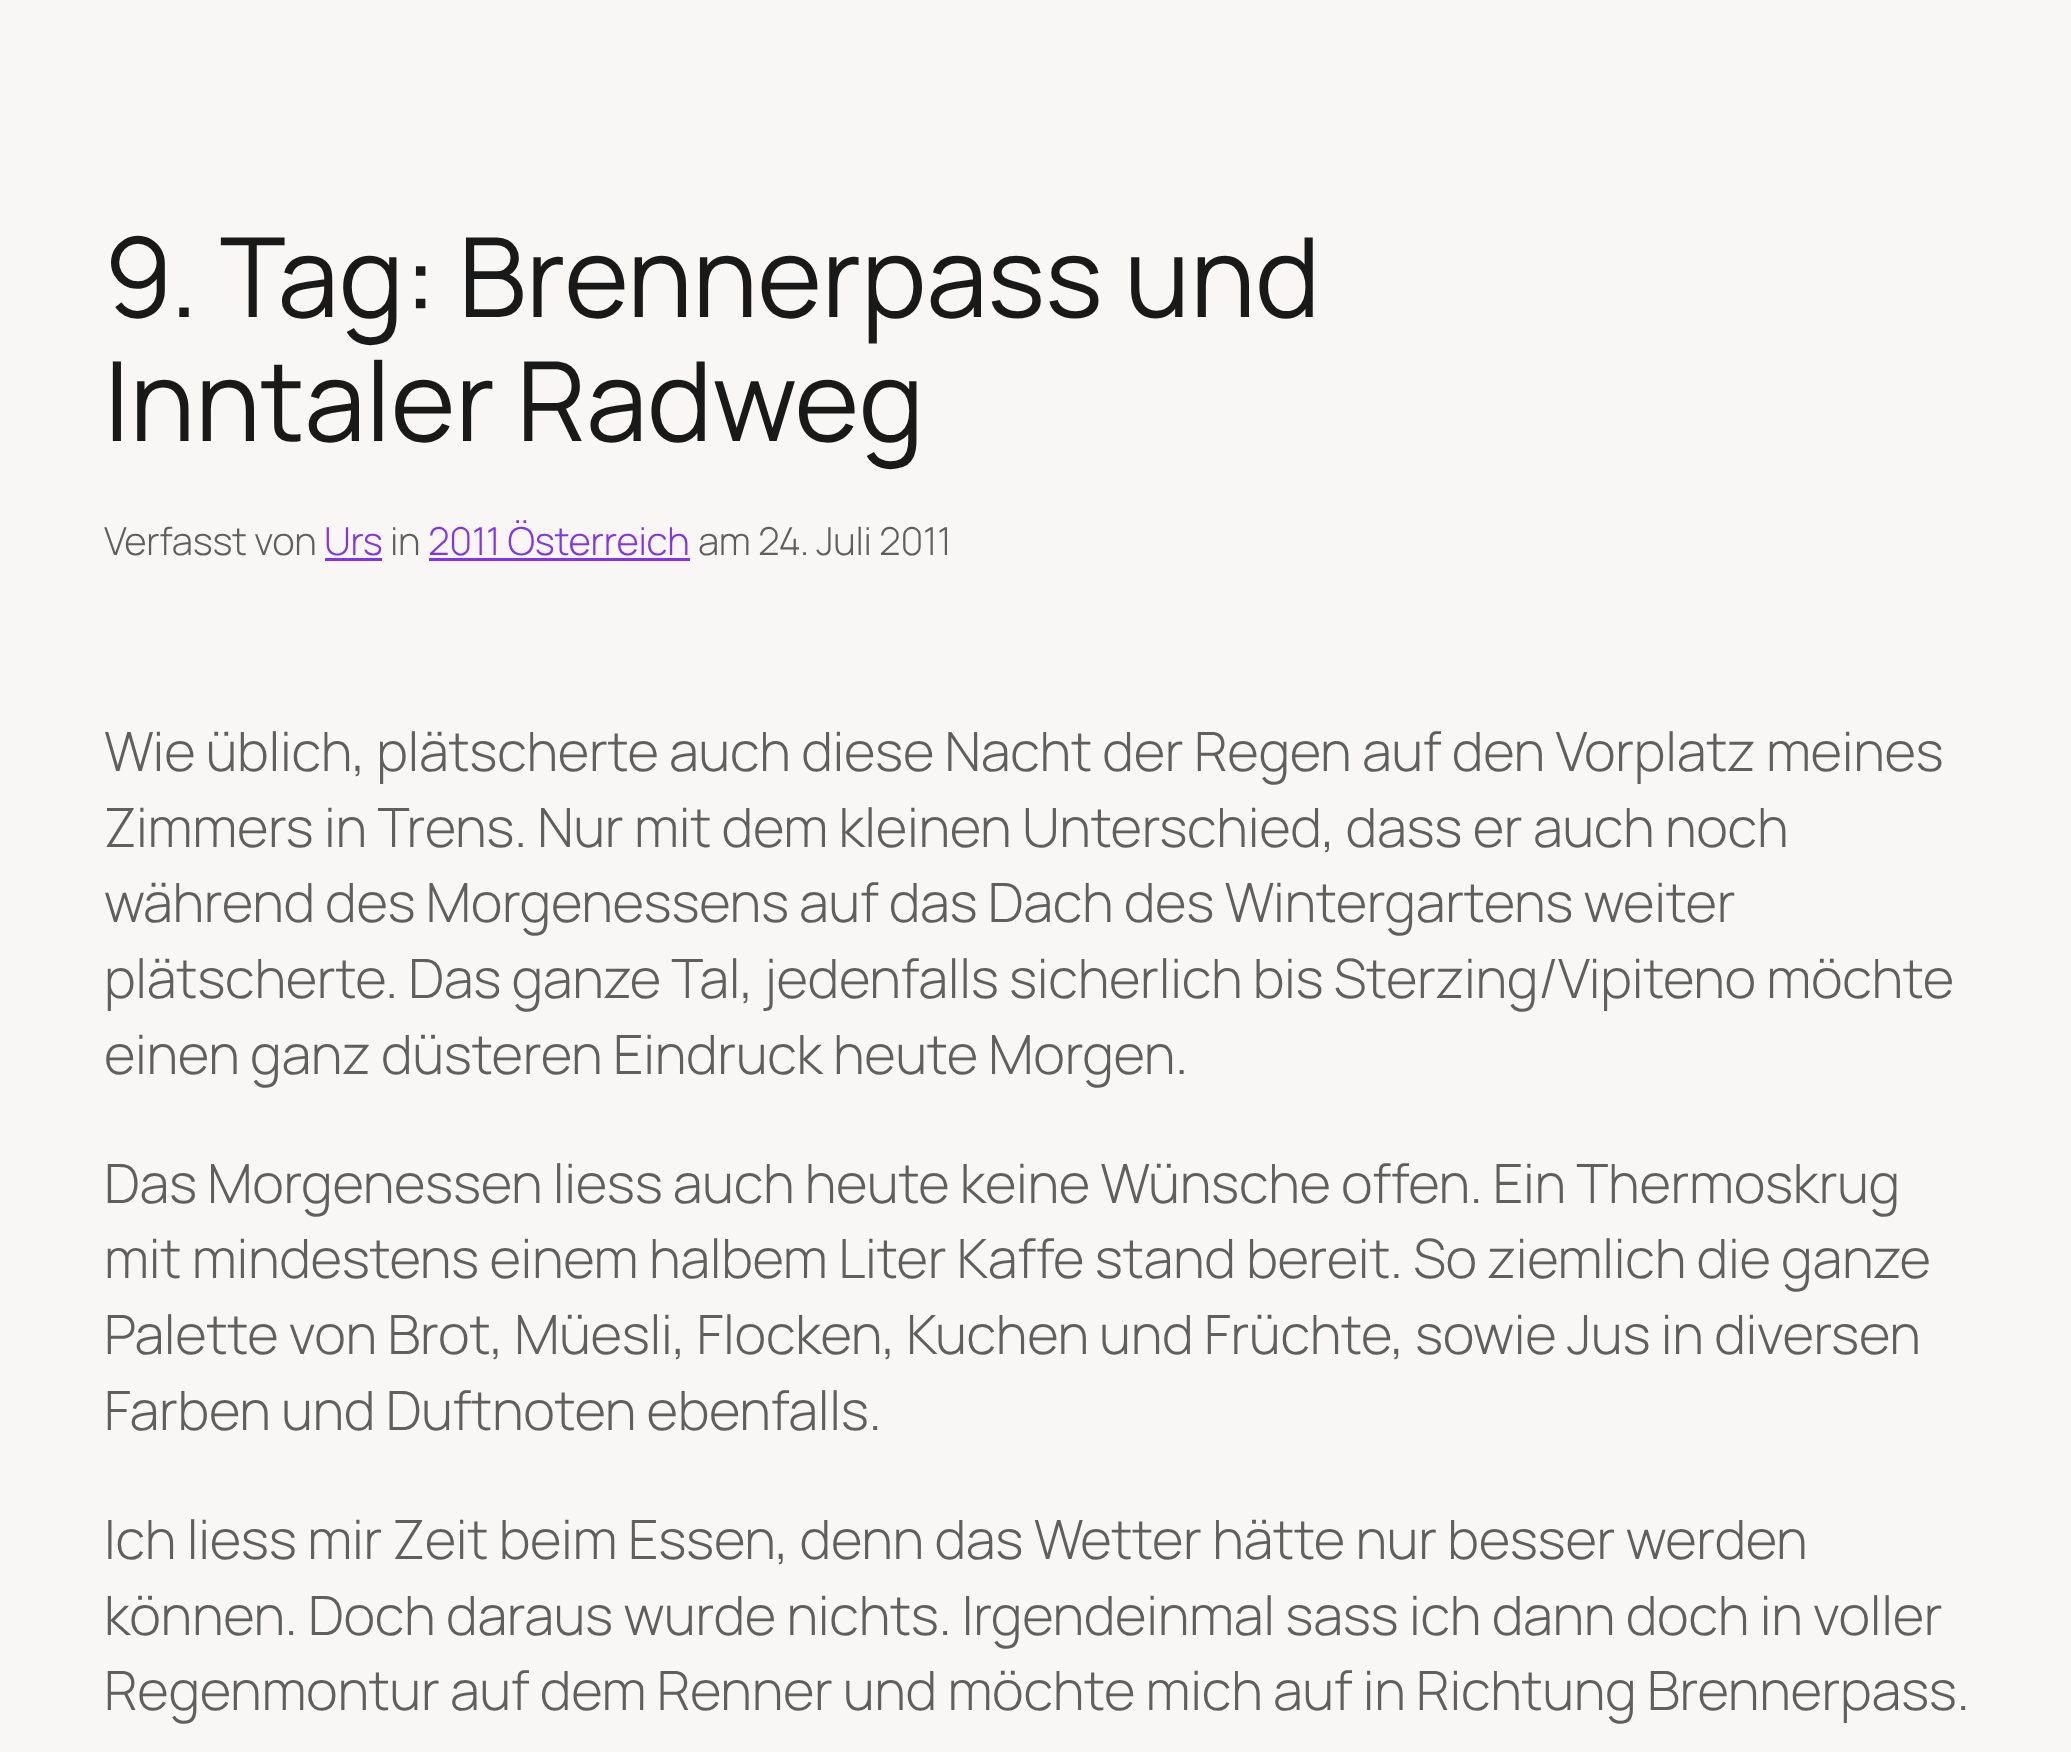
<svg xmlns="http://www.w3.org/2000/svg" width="2071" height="1752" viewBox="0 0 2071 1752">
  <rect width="100%" height="100%" fill="#f8f7f5"/>
  <path d="M325 558h57v3H325z" fill="#8033f2"/>
  <path d="M429 558h261v3H429z" fill="#8033f2"/>
  <g font-family="Manrope" font-size="110.5" letter-spacing="-0.28" fill="#191919">
    <text x="104" y="317">9. Tag: Brennerpass und</text>
    <text x="104" y="441">Inntaler Radweg</text>
  </g>
  <text x="104" y="555" font-family="Manrope" font-size="38.5" font-weight="300" letter-spacing="-0.28" fill="#5f5f5f">Verfasst von</text>
  <text x="324" y="555" font-family="Manrope" font-size="38.5" font-weight="300" letter-spacing="-0.28" fill="#8033f2">Urs</text>
  <text x="390" y="555" font-family="Manrope" font-size="38.5" font-weight="300" letter-spacing="-0.28" fill="#5f5f5f">in</text>
  <text x="428" y="555" font-family="Manrope" font-size="38.5" font-weight="300" letter-spacing="-0.28" fill="#8033f2">2011 Österreich</text>
  <text x="698" y="555" font-family="Manrope" font-size="38.5" font-weight="300" letter-spacing="-0.28" fill="#5f5f5f">am 24. Juli 2011</text>
  <g font-family="Manrope" font-size="54.2" font-weight="300" letter-spacing="-0.28" fill="#5f5f5f">
    <text x="104" y="771">Wie üblich, plätscherte auch diese Nacht der Regen auf den Vorplatz meines</text>
    <text x="104" y="847">Zimmers in Trens. Nur mit dem kleinen Unterschied, dass er auch noch</text>
    <text x="104" y="922" word-spacing="-0.25">während des Morgenessens auf das Dach des Wintergartens weiter</text>
    <text x="104" y="998" word-spacing="-0.25">plätscherte. Das ganze Tal, jedenfalls sicherlich bis Sterzing/Vipiteno möchte</text>
    <text x="104" y="1074">einen ganz düsteren Eindruck heute Morgen.</text>
    <text x="104" y="1203" word-spacing="-0.25">Das Morgenessen liess auch heute keine Wünsche offen. Ein Thermoskrug</text>
    <text x="104" y="1278">mit mindestens einem halbem Liter Kaffe stand bereit. So ziemlich die ganze</text>
    <text x="104" y="1354">Palette von Brot, Müesli, Flocken, Kuchen und Früchte, sowie Jus in diversen</text>
    <text x="104" y="1430">Farben und Duftnoten ebenfalls.</text>
    <text x="104" y="1559">Ich liess mir Zeit beim Essen, denn das Wetter hätte nur besser werden</text>
    <text x="104" y="1635">können. Doch daraus wurde nichts. Irgendeinmal sass ich dann doch in voller</text>
    <text x="104" y="1710" word-spacing="-0.1">Regenmontur auf dem Renner und möchte mich auf in Richtung Brennerpass.</text>
  </g>
</svg>
